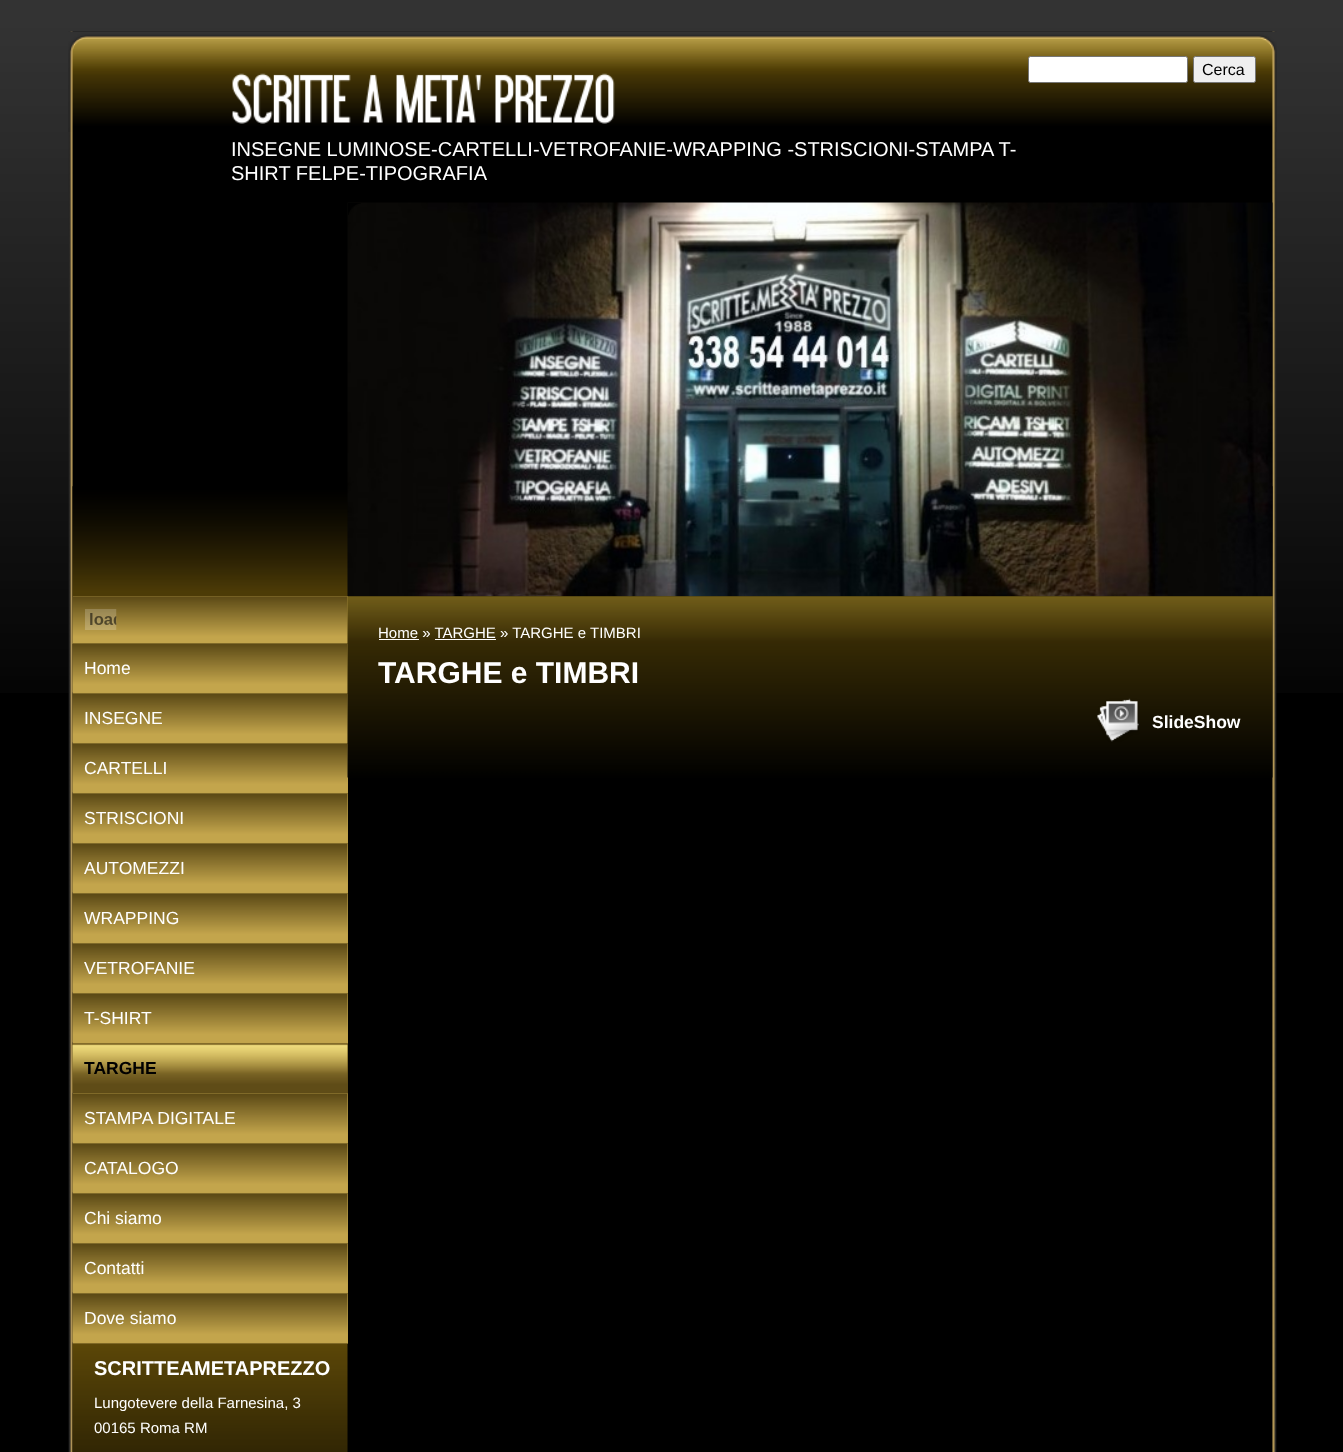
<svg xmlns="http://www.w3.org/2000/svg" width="1343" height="1452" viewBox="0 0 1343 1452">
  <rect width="100%" height="100%" fill="#000"/>
  <image x="0" y="0" width="1343" height="693" href="img/1.png"/>
  <image x="68" y="31" width="1209" height="1421" href="img/2.png"/>
  <image x="68" y="31" width="1209" height="101" href="img/3.png"/>
  <rect x="1028.5" y="56.5" width="159" height="26" rx="2" fill="#fff" stroke="#767676"/>
  <rect x="1193.5" y="56.5" width="62" height="26" rx="2" fill="#efefef" stroke="#767676"/>
  <image x="72" y="486" width="1201" height="111" href="img/4.png"/>
  <image x="232" y="73" width="383" height="51" href="img/5.png"/>
  <path d="M73 596h275v47H73z" fill="#c0a24a"/>
  <image x="72" y="596" width="276" height="48" href="img/8.png"/>
  <image x="347" y="202" width="926" height="395" href="img/6.png"/>
  <image x="348" y="203" width="13" height="12" href="img/7.png"/>
  <path d="M73 643h275v1H73z" fill="#8c752f"/>
  <image x="85" y="609" width="32" height="21" href="img/9.png"/>
  <path d="M73 644h275v49H73z" fill="#c0a24a"/>
  <image x="72" y="643" width="276" height="50" href="img/10.png"/>
  <path d="M73 693h275v1H73z" fill="#8c752f"/>
  <path d="M73 694h275v49H73z" fill="#c0a24a"/>
  <image x="72" y="693" width="276" height="50" href="img/11.png"/>
  <path d="M73 743h275v1H73z" fill="#8c752f"/>
  <path d="M73 744h275v49H73z" fill="#c0a24a"/>
  <image x="72" y="743" width="276" height="50" href="img/12.png"/>
  <path d="M73 793h275v1H73z" fill="#8c752f"/>
  <path d="M73 794h275v49H73z" fill="#c0a24a"/>
  <image x="72" y="793" width="276" height="50" href="img/13.png"/>
  <path d="M73 843h275v1H73z" fill="#8c752f"/>
  <path d="M73 844h275v49H73z" fill="#c0a24a"/>
  <image x="72" y="843" width="276" height="50" href="img/14.png"/>
  <path d="M73 893h275v1H73z" fill="#8c752f"/>
  <path d="M73 894h275v49H73z" fill="#c0a24a"/>
  <image x="72" y="893" width="276" height="50" href="img/15.png"/>
  <path d="M73 943h275v1H73z" fill="#8c752f"/>
  <path d="M73 944h275v49H73z" fill="#c0a24a"/>
  <image x="72" y="943" width="276" height="50" href="img/16.png"/>
  <path d="M73 993h275v1H73z" fill="#8c752f"/>
  <path d="M73 994h275v49H73z" fill="#c0a24a"/>
  <image x="72" y="993" width="276" height="50" href="img/17.png"/>
  <path d="M73 1043h275v1H73z" fill="#8c752f"/>
  <image x="72" y="1043" width="276" height="50" href="img/14.png"/>
  <path d="M73 1093h275v1H73z" fill="#8c752f"/>
  <path d="M73 1044h275v49H73z" fill="#5c4a16"/>
  <image x="72" y="1043" width="276" height="50" href="img/18.png"/>
  <path d="M73 1094h275v49H73z" fill="#c0a24a"/>
  <image x="72" y="1093" width="276" height="50" href="img/19.png"/>
  <path d="M73 1143h275v1H73z" fill="#8c752f"/>
  <path d="M73 1144h275v49H73z" fill="#c0a24a"/>
  <image x="72" y="1143" width="276" height="50" href="img/20.png"/>
  <path d="M73 1193h275v1H73z" fill="#8c752f"/>
  <path d="M73 1194h275v49H73z" fill="#c0a24a"/>
  <image x="72" y="1193" width="276" height="50" href="img/21.png"/>
  <path d="M73 1243h275v1H73z" fill="#8c752f"/>
  <path d="M73 1244h275v49H73z" fill="#c0a24a"/>
  <image x="72" y="1243" width="276" height="50" href="img/22.png"/>
  <path d="M73 1293h275v1H73z" fill="#8c752f"/>
  <path d="M73 1294h275v49H73z" fill="#c0a24a"/>
  <image x="72" y="1293" width="276" height="50" href="img/23.png"/>
  <path d="M73 1343h275v1H73z" fill="#8c752f"/>
  <image x="72" y="1343" width="276" height="109" href="img/24.png"/>
  <image x="347" y="596" width="926" height="182" href="img/25.png"/>
  <path d="M379 639h40v1H379z" fill="#fff"/>
  <path d="M435 639h61v1H435z" fill="#fff"/>
  <image x="1097" y="698" width="43" height="44" href="img/26.png"/>
  <text x="1202" y="75" font-family="Liberation Sans" font-size="16" fill="#000">Cerca</text>
  <g font-family="Liberation Sans" font-size="20" fill="#fff">
    <text x="231" y="156">INSEGNE LUMINOSE-CARTELLI-VETROFANIE-WRAPPING -STRISCIONI-STAMPA T-</text>
    <text x="231" y="180">SHIRT FELPE-TIPOGRAFIA</text>
  </g>
  <g font-family="Liberation Sans" font-size="17.5" fill="#fff">
    <text x="84" y="674">Home</text>
    <text x="84" y="724">INSEGNE</text>
    <text x="84" y="774">CARTELLI</text>
    <text x="84" y="824">STRISCIONI</text>
    <text x="84" y="874">AUTOMEZZI</text>
    <text x="84" y="924">WRAPPING</text>
    <text x="84" y="974">VETROFANIE</text>
    <text x="84" y="1024">T-SHIRT</text>
  </g>
  <text x="84" y="1074" font-family="Liberation Sans" font-size="17.5" font-weight="bold" fill="#000">TARGHE</text>
  <g font-family="Liberation Sans" font-size="17.5" fill="#fff">
    <text x="84" y="1124">STAMPA DIGITALE</text>
    <text x="84" y="1174">CATALOGO</text>
    <text x="84" y="1224">Chi siamo</text>
    <text x="84" y="1274">Contatti</text>
    <text x="84" y="1324">Dove siamo</text>
  </g>
  <text x="94" y="1375" font-family="Liberation Sans" font-size="20" font-weight="bold" fill="#fff">SCRITTEAMETAPREZZO</text>
  <g font-family="Liberation Sans" font-size="15" fill="#fff">
    <text x="94" y="1408">Lungotevere della Farnesina, 3</text>
    <text x="94" y="1433">00165 Roma RM</text>
    <text x="378" y="638">Home » TARGHE » TARGHE e TIMBRI</text>
  </g>
  <text x="378" y="683" font-family="Liberation Sans" font-size="30" font-weight="bold" fill="#fff">TARGHE e TIMBRI</text>
  <text x="1152" y="728" font-family="Liberation Sans" font-size="17.5" font-weight="bold" fill="#fff">SlideShow</text>
</svg>
